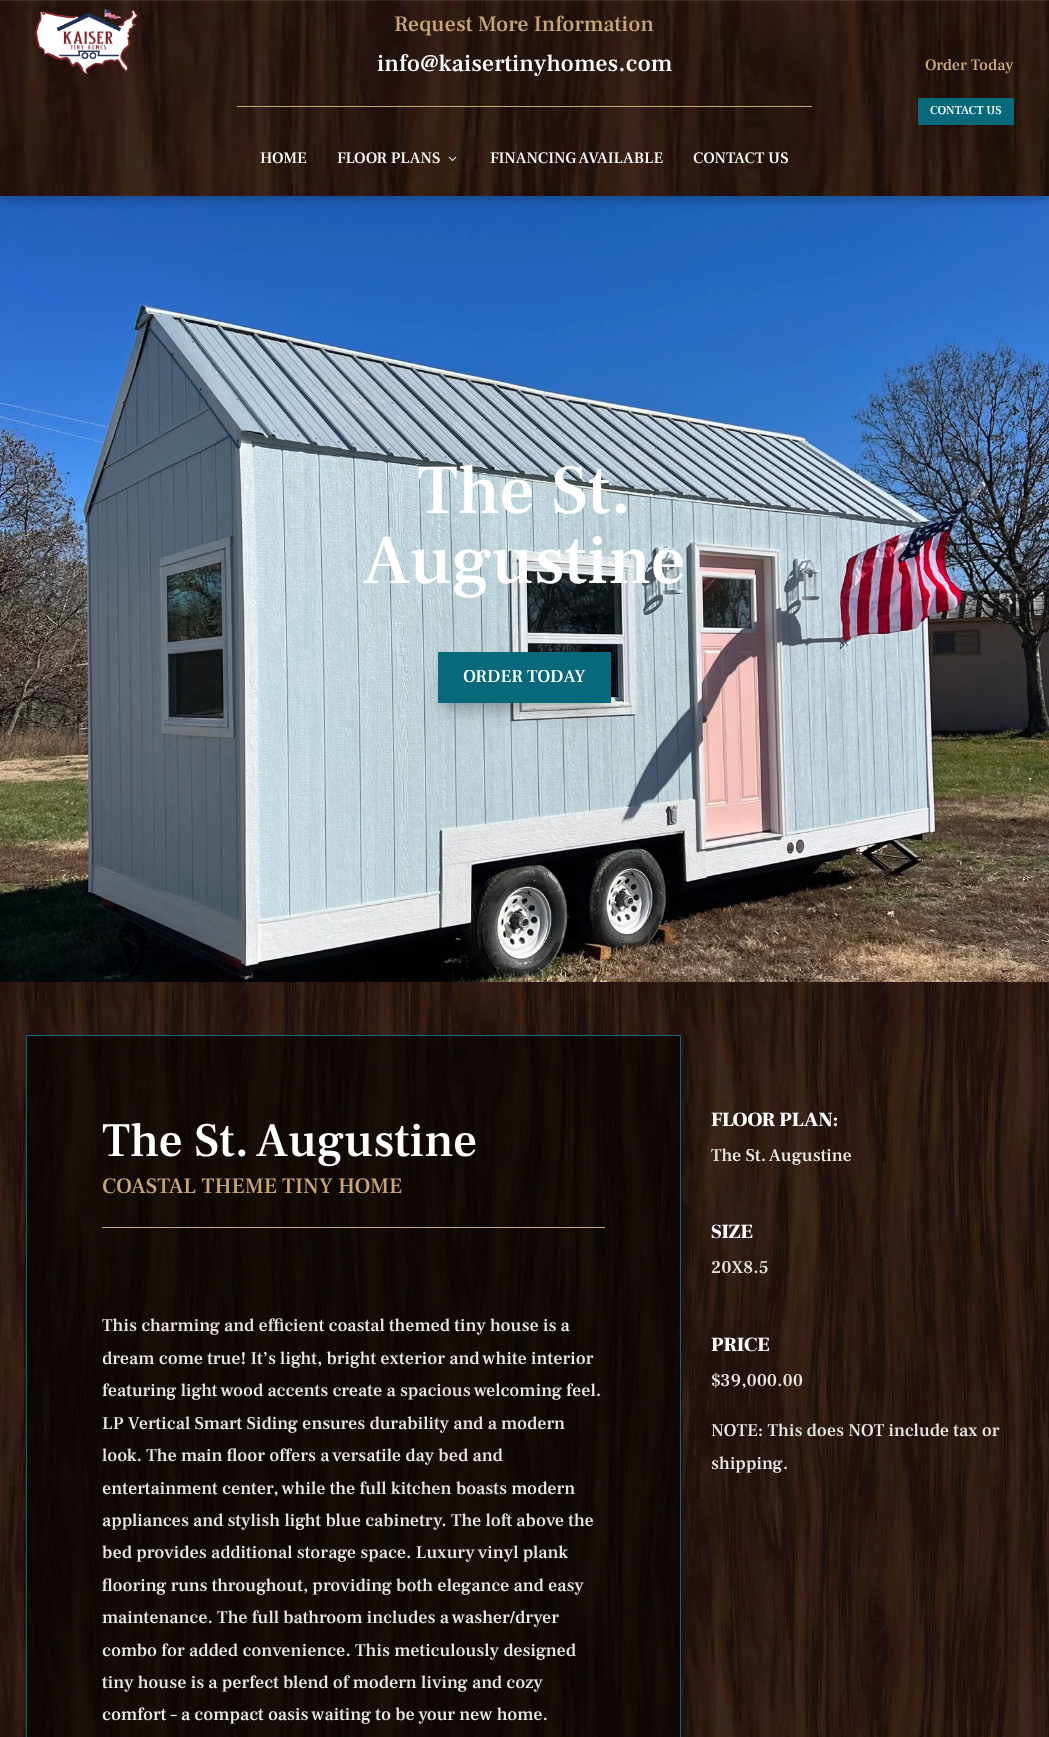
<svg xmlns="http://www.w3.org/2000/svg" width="1049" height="1737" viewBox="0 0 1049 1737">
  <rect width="100%" height="100%" fill="#fff"/>
  <image x="0" y="196" width="1049" height="786" href="img/4.png"/>
  <path d="M0 4h1049v196H0z" fill="#00000038" filter="blur(5px)"/>
  <image x="0" y="0" width="1049" height="196" href="img/1.png"/>
  <image x="35" y="8" width="103" height="66" href="img/2.png"/>
  <path d="M237 106h575v1H237z" fill="#c6a579"/>
  <image x="448" y="156" width="9" height="5" href="img/3.png"/>
  <path d="M918 98h96v27H918z" fill="#07697a"/>
  <path d="M444 670h161v39H444z" fill="#0000004d" filter="blur(9px)"/>
  <path d="M438 652h173v51H438z" fill="#07697a"/>
  <image x="0" y="982" width="1049" height="755" href="img/5.png"/>
  <path d="M26.5 1035.5h654v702H26.5z" fill="#00000091" stroke="#07697a"/>
  <path d="M102 1227h503v1H102z" fill="#c6a579"/>
  <text x="394" y="31" font-family="Frank Ruhl Libre" font-size="22" font-weight="500" fill="#c6a579">Request More Information</text>
  <text x="377" y="71" font-family="Frank Ruhl Libre" font-size="24" font-weight="500" fill="#fff">info@kaisertinyhomes.com</text>
  <g font-family="Frank Ruhl Libre" font-size="16" font-weight="500" fill="#fff">
    <text x="260" y="163">HOME</text>
    <text x="337" y="163">FLOOR PLANS</text>
    <text x="490" y="163">FINANCING AVAILABLE</text>
    <text x="693" y="163">CONTACT US</text>
  </g>
  <text x="925" y="70" font-family="Frank Ruhl Libre" font-size="16" font-weight="500" fill="#cfaa7e">Order Today</text>
  <text x="930" y="114" font-family="Frank Ruhl Libre" font-size="12" font-weight="500" fill="#fff">CONTACT US</text>
  <g font-family="Frank Ruhl Libre" font-size="70" font-weight="500" fill="#fff">
    <text x="417" y="513">The St.</text>
    <text x="363" y="583">Augustine</text>
  </g>
  <text x="463" y="682" font-family="Frank Ruhl Libre" font-size="18" font-weight="500" fill="#fff">ORDER TODAY</text>
  <text x="102" y="1156" font-family="Frank Ruhl Libre" font-size="48" font-weight="500" fill="#fff">The St. Augustine</text>
  <text x="102" y="1193" font-family="Frank Ruhl Libre" font-size="22" font-weight="500" fill="#c6a579">COASTAL THEME TINY HOME</text>
  <g font-family="Frank Ruhl Libre" font-size="18" font-weight="500" fill="#e7e7e6">
    <text x="102" y="1331">This charming and efficient coastal themed tiny house is a</text>
    <text x="102" y="1364">dream come true! It’s light, bright exterior and white interior</text>
    <text x="102" y="1396">featuring light wood accents create a spacious welcoming feel.</text>
    <text x="102" y="1429">LP Vertical Smart Siding ensures durability and a modern</text>
    <text x="102" y="1461">look. The main floor offers a versatile day bed and</text>
    <text x="102" y="1494">entertainment center, while the full kitchen boasts modern</text>
    <text x="102" y="1526">appliances and stylish light blue cabinetry. The loft above the</text>
    <text x="102" y="1558">bed provides additional storage space. Luxury vinyl plank</text>
    <text x="102" y="1591">flooring runs throughout, providing both elegance and easy</text>
    <text x="102" y="1623">maintenance. The full bathroom includes a washer/dryer</text>
    <text x="102" y="1656">combo for added convenience. This meticulously designed</text>
    <text x="102" y="1688">tiny house is a perfect blend of modern living and cozy</text>
    <text x="102" y="1720">comfort – a compact oasis waiting to be your new home.</text>
  </g>
  <text x="711" y="1126" font-family="Frank Ruhl Libre" font-size="20" font-weight="900" fill="#fff">FLOOR PLAN:</text>
  <text x="711" y="1161" font-family="Frank Ruhl Libre" font-size="18" font-weight="500" fill="#e7e7e6">The St. Augustine</text>
  <text x="711" y="1238" font-family="Frank Ruhl Libre" font-size="20" font-weight="900" fill="#fff">SIZE</text>
  <text x="711" y="1273" font-family="Frank Ruhl Libre" font-size="18" font-weight="500" fill="#e7e7e6">20X8.5</text>
  <text x="711" y="1351" font-family="Frank Ruhl Libre" font-size="20" font-weight="900" fill="#fff">PRICE</text>
  <g font-family="Frank Ruhl Libre" font-size="18" font-weight="500" fill="#e7e7e6">
    <text x="711" y="1386">$39,000.00</text>
    <text x="711" y="1436">NOTE: This does NOT include tax or</text>
    <text x="711" y="1469">shipping.</text>
  </g>
</svg>
